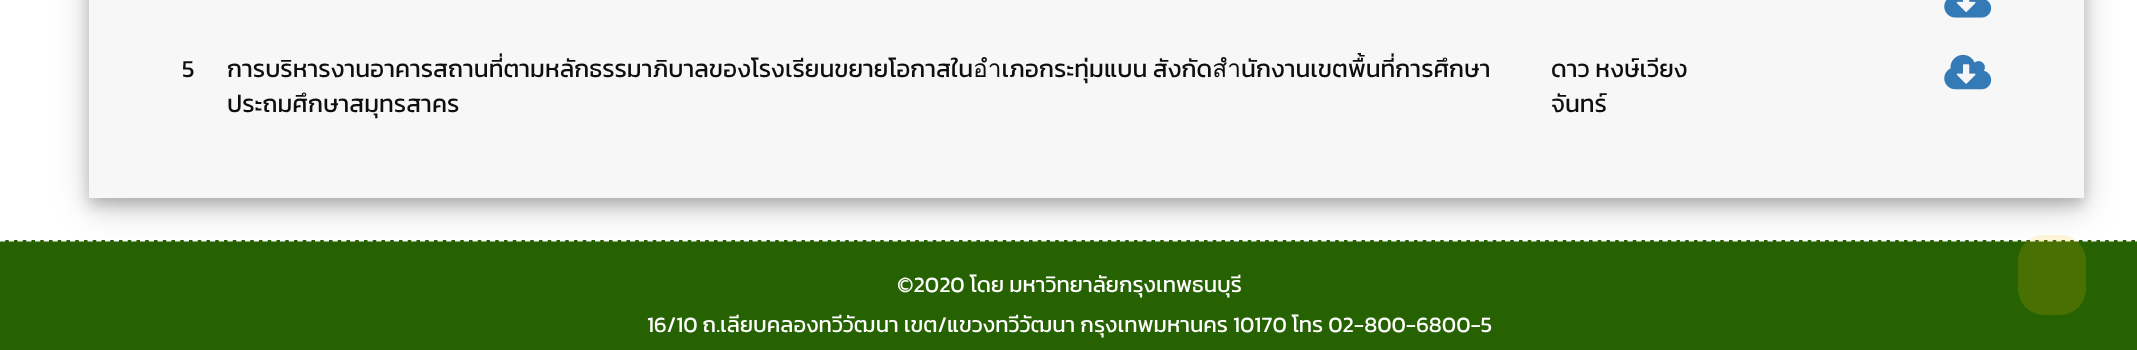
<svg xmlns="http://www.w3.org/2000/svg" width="2137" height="350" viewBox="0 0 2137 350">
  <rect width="100%" height="100%" fill="#fff"/>
  <path d="M0 240h2137v110H0z" fill="#266102"/>
  <path d="M0 240.5H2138.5" fill="none" stroke="#fff" stroke-width="1.8" stroke-dasharray="5.25 3.5"/>
  <path d="M89 -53h1995v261H89z" fill="#00000030" filter="blur(17.5px)"/>
  <path d="M89 -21h1995v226H89z" fill="#00000033" filter="blur(7px)"/>
  <path d="M89 0h1995v198H89z" fill="#f7f7f7"/>
  <image x="1944" y="0" width="48" height="18" href="img/1.png"/>
  <image x="1944" y="54" width="48" height="36" href="img/2.png"/>
  <rect x="2018" y="235" width="68" height="80" rx="26" fill="#ffc10729"/>
  <g font-family="Kanit" font-size="24.5" fill="#0e0e0e">
    <text x="182" y="77">5</text>
    <text x="227" y="77">การบริหารงานอาคารสถานที่ตามหลักธรรมาภิบาลของโรงเรียนขยายโอกาสในอำเภอกระทุ่มแบน สังกัดสำนักงานเขตพื้นที่การศึกษา</text>
    <text x="227" y="112">ประถมศึกษาสมุทรสาคร</text>
    <text x="1551" y="77">ดาว หงษ์เวียง</text>
    <text x="1551" y="112">จันทร์</text>
  </g>
  <g font-family="Kanit" font-size="22.05" fill="#fff">
    <text x="897" y="292">©2020 โดย มหาวิทยาลัยกรุงเทพธนบุรี</text>
    <text x="647" y="332">16/10 ถ.เลียบคลองทวีวัฒนา เขต/แขวงทวีวัฒนา กรุงเทพมหานคร 10170 โทร 02-800-6800-5</text>
  </g>
</svg>
